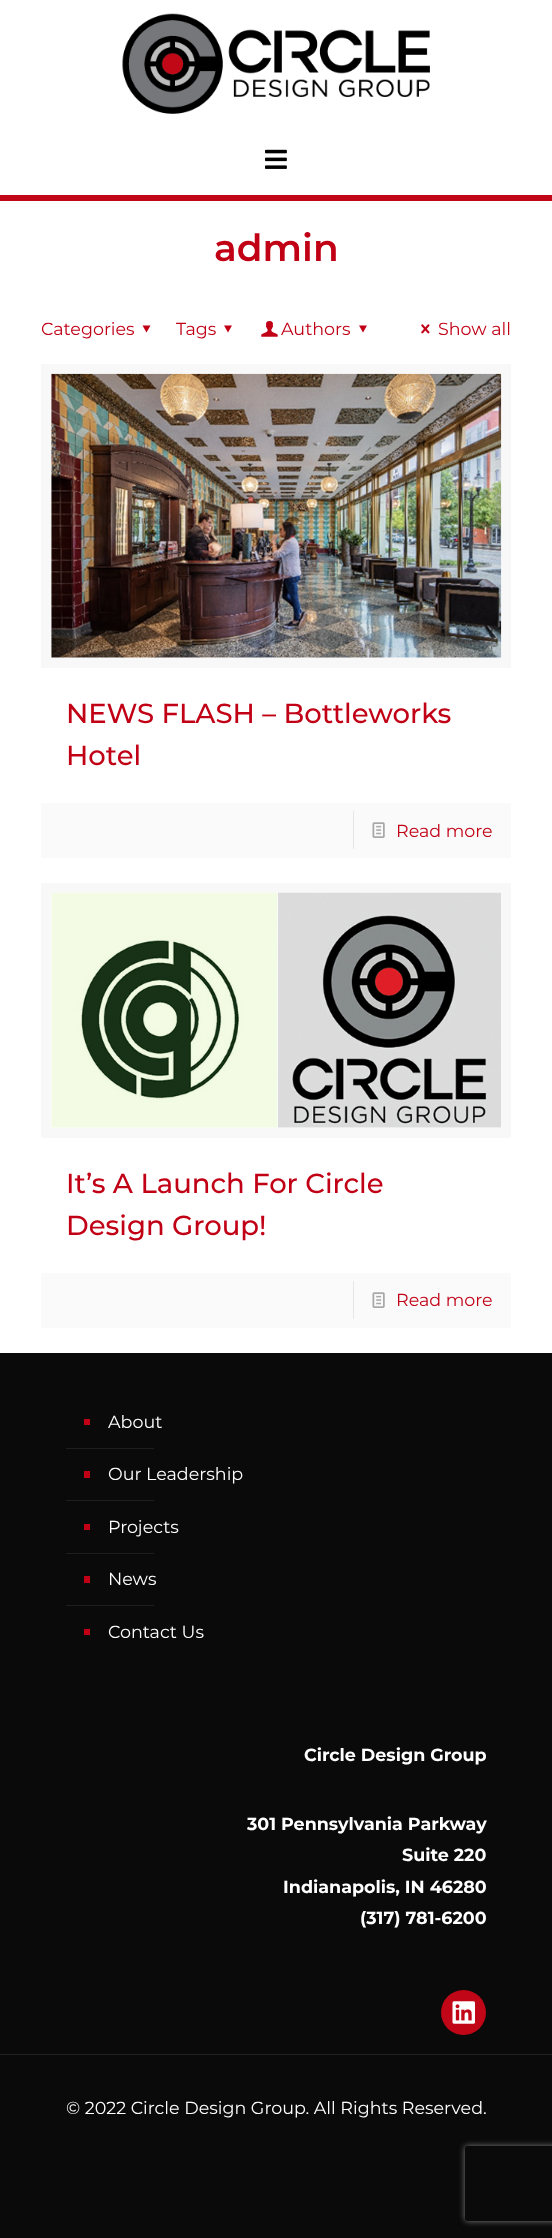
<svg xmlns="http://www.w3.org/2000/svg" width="552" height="2238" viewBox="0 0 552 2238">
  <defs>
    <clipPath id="clip1"><path d="M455 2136H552V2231H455ZM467.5 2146H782.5C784 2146 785 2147 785 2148.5V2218.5C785 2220 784 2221 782.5 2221H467.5C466 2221 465 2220 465 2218.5V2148.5C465 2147 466 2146 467.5 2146Z" clip-rule="evenodd"/></clipPath>
  </defs>
  <rect width="100%" height="100%" fill="#0a0a0a"/>
  <path d="M0 201h552v1152H0z" fill="#fff"/>
  <path d="M0 195h552v6H0z" fill="#c10717"/>
  <path d="M0 0h552v195H0z" fill="#fff"/>
  <image x="122" y="13" width="308" height="101" href="img/1.png"/>
  <image x="265" y="149" width="22" height="20" href="img/2.png"/>
  <path d="M150.5 325.5L146.5 332.5L142.5 325.5Z" fill="#c10016"/>
  <path d="M232 325.5L228 332.5L224 325.5Z" fill="#c10016"/>
  <image x="261" y="321" width="17" height="16" href="img/3.png"/>
  <path d="M367 325.5L363 332.5L359 325.5Z" fill="#c10016"/>
  <image x="421" y="324" width="9" height="10" href="img/4.png"/>
  <path d="M46 369h460v294H46z" fill="none" stroke="#f8f8f8" stroke-width="10"/>
  <image x="51" y="373" width="451" height="285" href="img/5.png"/>
  <path d="M41 803h470v55H41z" fill="#fafafa"/>
  <path d="M353 811h1v38H353z" fill="#e6e6e6"/>
  <image x="372" y="822" width="13" height="16" href="img/6.png"/>
  <path d="M46 888h460v245H46z" fill="none" stroke="#f8f8f8" stroke-width="10"/>
  <image x="51" y="892" width="450" height="236" href="img/7.png"/>
  <path d="M41 1273h470v55H41z" fill="#fafafa"/>
  <path d="M353 1281h1v38H353z" fill="#e6e6e6"/>
  <image x="372" y="1292" width="13" height="16" href="img/6.png"/>
  <path d="M84 1419h6v6H84z" fill="#c10016"/>
  <path d="M66 1448h88v1H66z" fill="#1e1e1e"/>
  <path d="M84 1471h6v7H84z" fill="#c10016"/>
  <path d="M66 1500h88v1H66z" fill="#1e1e1e"/>
  <path d="M84 1524h6v6H84z" fill="#c10016"/>
  <path d="M66 1553h88v1H66z" fill="#1e1e1e"/>
  <path d="M84 1576h6v7H84z" fill="#c10016"/>
  <path d="M66 1605h88v1H66z" fill="#1e1e1e"/>
  <path d="M84 1629h6v6H84z" fill="#c10016"/>
  <circle cx="463.5" cy="2012.5" r="22.5" fill="#c10717"/>
  <image x="452" y="2001" width="23" height="23" href="img/8.png"/>
  <path d="M0 2054h552v1H0z" fill="#232323"/>
  <g clip-path="url(#clip1)">
    <rect x="465" y="2146" width="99" height="75" rx="2.5" fill="#808080" filter="blur(3px)"/>
  </g>
  <text x="214" y="261" font-family="Montserrat" font-size="37.5" font-weight="600" fill="#c10016">admin</text>
  <g font-family="Montserrat" font-size="17.5" fill="#c10016">
    <text x="41" y="335">Categories</text>
    <text x="176" y="335">Tags</text>
    <text x="281" y="335">Authors</text>
    <text x="438" y="335">Show all</text>
  </g>
  <g font-family="Montserrat" font-size="27.5" font-weight="500" fill="#c10016">
    <text x="66" y="723">NEWS FLASH – Bottleworks</text>
    <text x="66" y="765">Hotel</text>
  </g>
  <text x="396" y="837" font-family="Montserrat" font-size="17.5" fill="#c10016">Read more</text>
  <g font-family="Montserrat" font-size="27.5" font-weight="500" fill="#c10016">
    <text x="66" y="1193">It’s A Launch For Circle</text>
    <text x="66" y="1235">Design Group!</text>
  </g>
  <text x="396" y="1306" font-family="Montserrat" font-size="17.5" fill="#c10016">Read more</text>
  <g font-family="Montserrat" font-size="17.5" fill="#fff">
    <text x="108" y="1428">About</text>
    <text x="108" y="1480">Our Leadership</text>
    <text x="108" y="1533">Projects</text>
    <text x="108" y="1585">News</text>
    <text x="108" y="1638">Contact Us</text>
  </g>
  <g font-family="Montserrat" font-size="17.5" font-weight="bold" fill="#fff">
    <text x="304" y="1761">Circle Design Group</text>
    <text x="247" y="1830">301 Pennsylvania Parkway</text>
    <text x="402" y="1861">Suite 220</text>
    <text x="283" y="1893">Indianapolis, IN 46280</text>
    <text x="360" y="1924">(317) 781-6200</text>
  </g>
  <text x="66" y="2114" font-family="Montserrat" font-size="17.5" fill="#fff">© 2022 Circle Design Group. All Rights Reserved.</text>
</svg>
